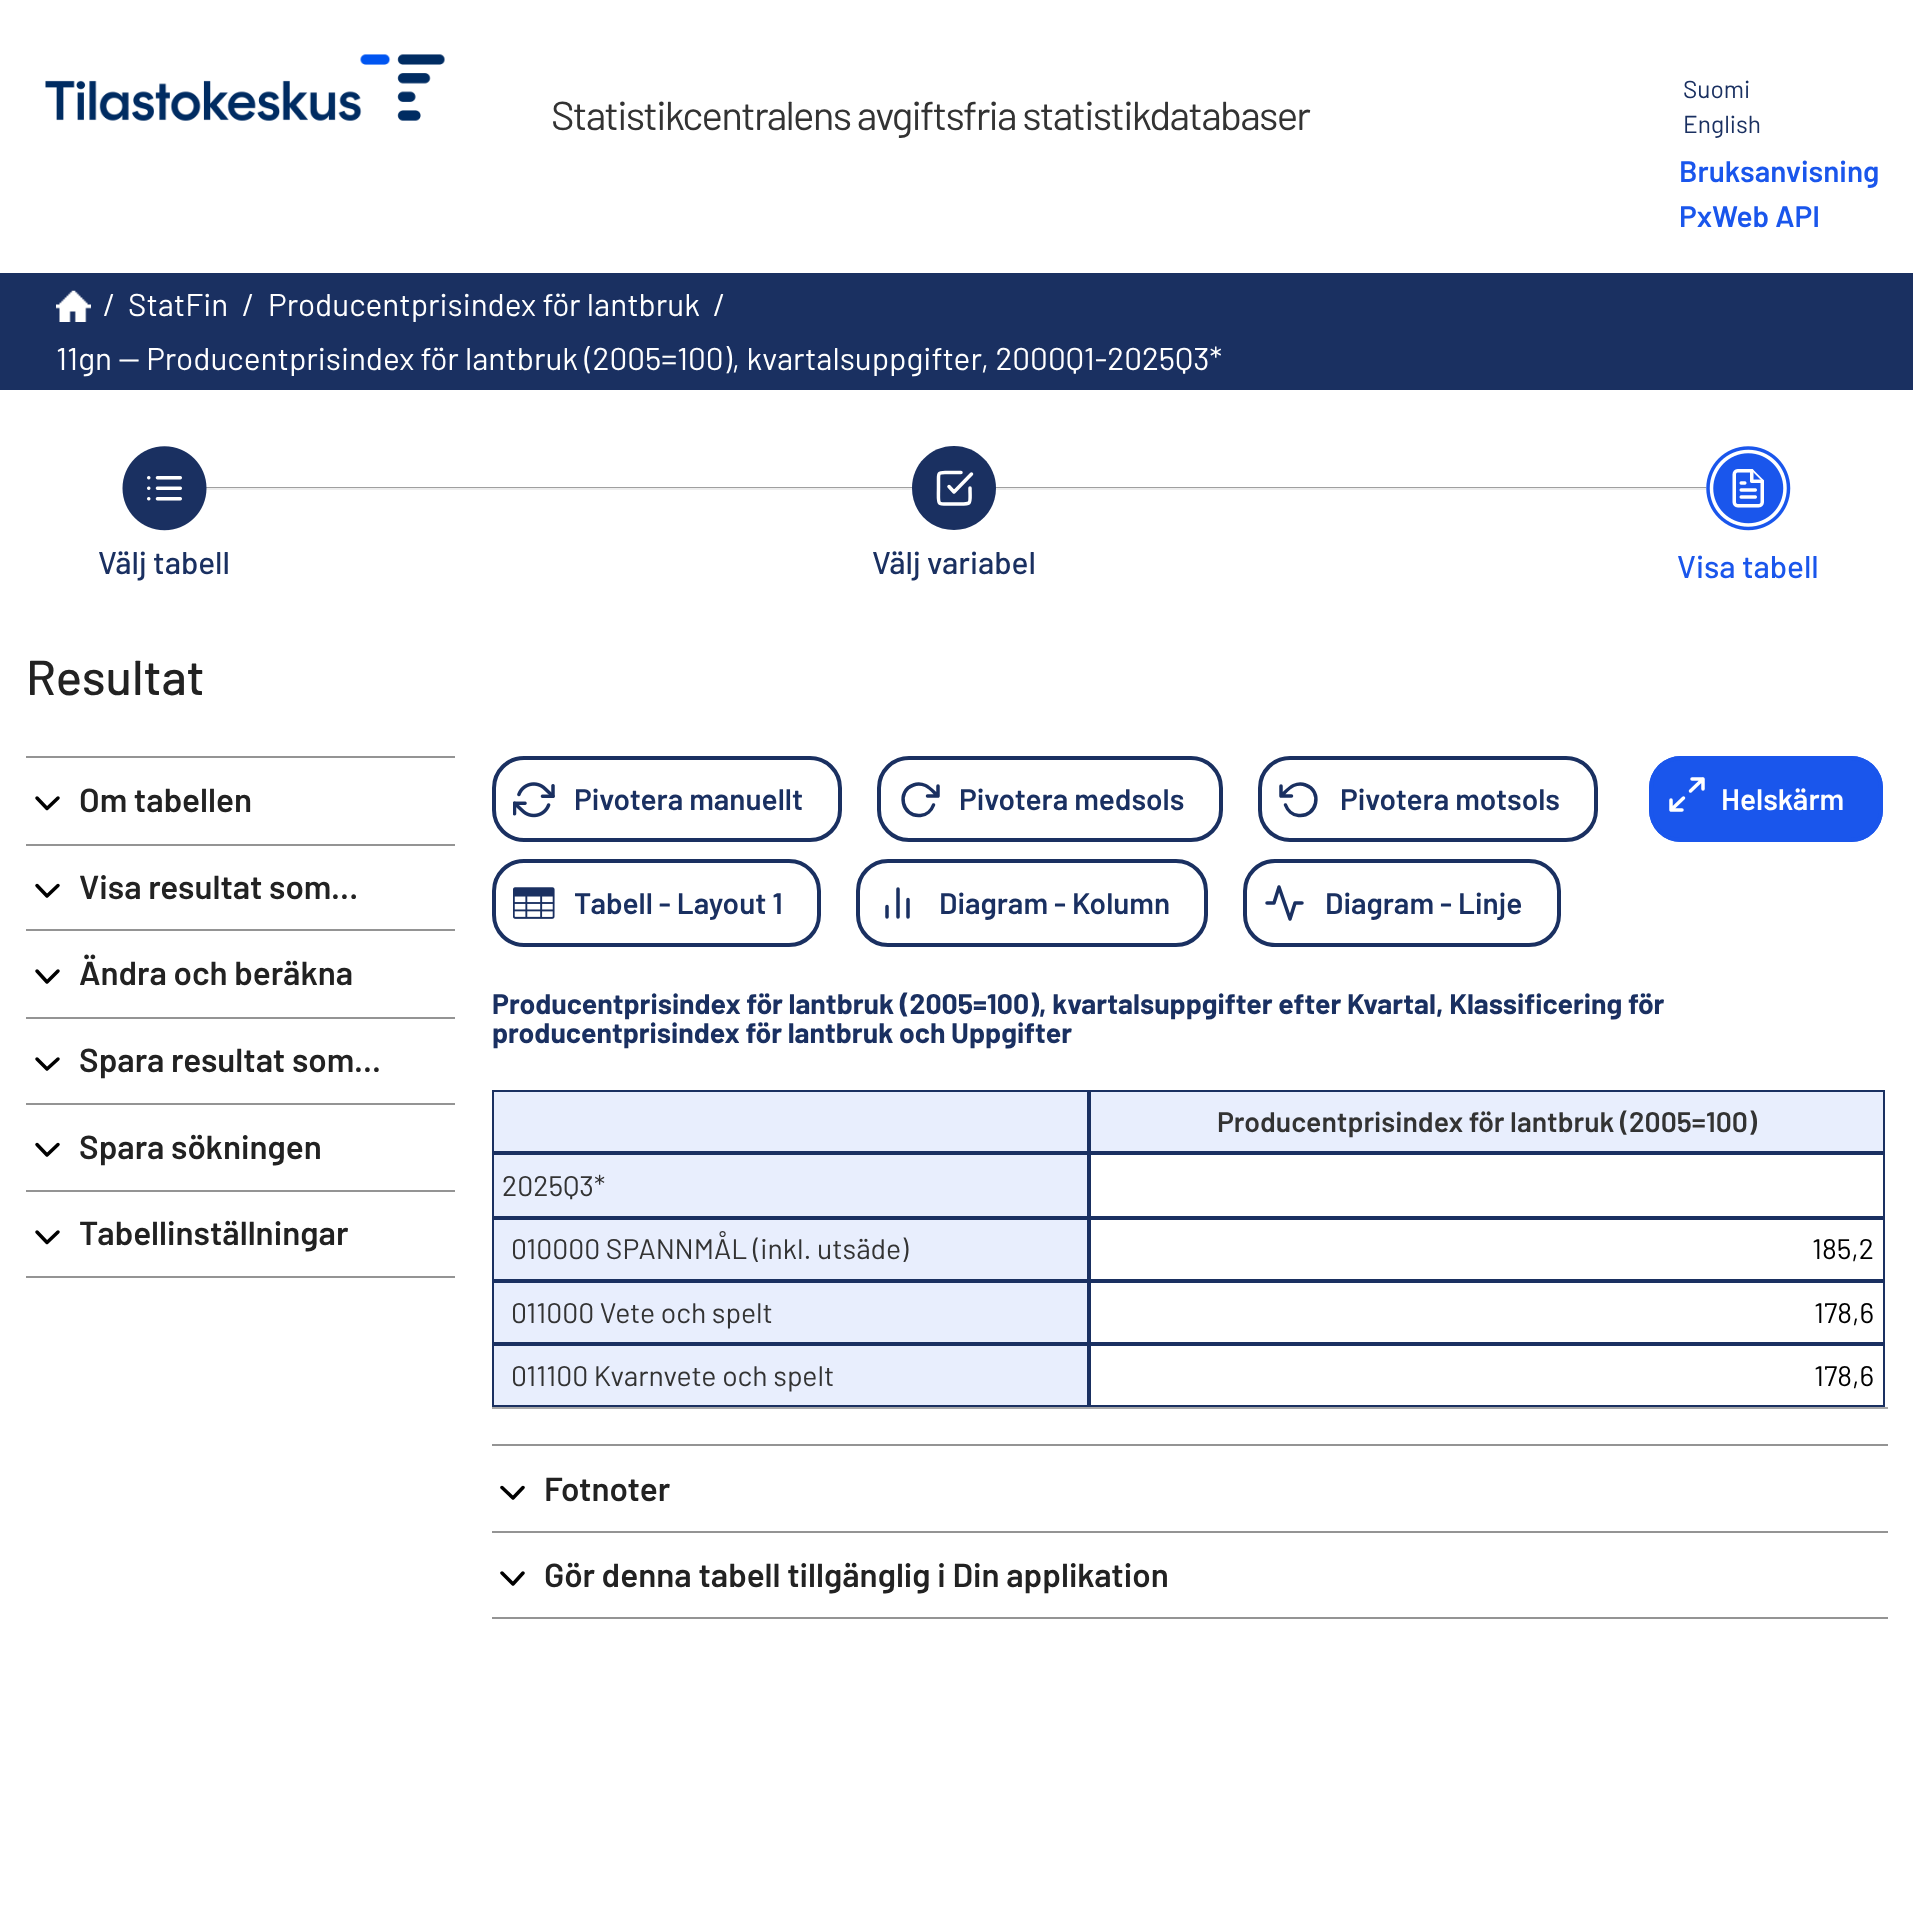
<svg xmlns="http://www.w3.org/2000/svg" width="1913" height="1923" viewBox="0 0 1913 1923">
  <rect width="100%" height="100%" fill="#fff"/>
  <image x="45" y="54" width="400" height="67" href="img/1.png"/>
  <path d="M0 273h1913v117H0z" fill="#1a3061"/>
  <image x="56" y="290" width="35" height="32" href="img/2.png"/>
  <path d="M206 487h707v1H206z" fill="#9f9f9f"/>
  <path d="M206 488h707v2H206z" fill="#eee"/>
  <path d="M995 487h712v1H995z" fill="#9f9f9f"/>
  <path d="M995 488h712v2H995z" fill="#eee"/>
  <image x="122" y="446" width="85" height="85" href="img/3.png"/>
  <path d="M954 446C977 446 996 465 996 488C996 512 977 530 954 530C930 530 912 512 912 488C912 465 930 446 954 446Z" fill="#1a3061"/>
  <path d="M949 486.5L954 492L971.5 474M970 488C970 506 973 504 954 504C936 504 938.5 506.5 938.5 488V480C938.5 473.5 938 472.5 945 472.5H961" fill="none" stroke="#fff" stroke-width="3.5" stroke-linecap="round" stroke-linejoin="round"/>
  <image x="1706" y="446" width="85" height="85" href="img/4.png"/>
  <path d="M26 756h429v2H26z" fill="#949494"/>
  <path d="M37 798L47 808.5L58 798" fill="none" stroke="#000" stroke-width="3.5" stroke-linecap="round" stroke-linejoin="round"/>
  <path d="M26 844h429v2H26z" fill="#949494"/>
  <path d="M37 885.5L47 896L58 885.5" fill="none" stroke="#000" stroke-width="3.5" stroke-linecap="round" stroke-linejoin="round"/>
  <path d="M26 929h429v2H26z" fill="#949494"/>
  <path d="M37 971L47 982L58 971" fill="none" stroke="#000" stroke-width="3.5" stroke-linecap="round" stroke-linejoin="round"/>
  <path d="M26 1017h429v2H26z" fill="#949494"/>
  <path d="M37 1059L47 1069L58 1059" fill="none" stroke="#000" stroke-width="3.5" stroke-linecap="round" stroke-linejoin="round"/>
  <path d="M26 1103h429v2H26z" fill="#949494"/>
  <path d="M37 1144.5L47 1155L58 1144.5" fill="none" stroke="#000" stroke-width="3.5" stroke-linecap="round" stroke-linejoin="round"/>
  <path d="M26 1190h429v2H26z" fill="#949494"/>
  <path d="M37 1232L47 1242.5L58 1232" fill="none" stroke="#000" stroke-width="3.5" stroke-linecap="round" stroke-linejoin="round"/>
  <path d="M26 1276h429v2H26z" fill="#949494"/>
  <image x="513" y="782" width="42" height="36" href="img/5.png"/>
  <rect x="494" y="758" width="346" height="82" rx="30" fill="none" stroke="#1a3061" stroke-width="4"/>
  <path d="M938 786V796H927.5M933.5 805C931.5 810.5 926.5 815 920.5 815.5C902 817.5 896 791 913.5 785C917.5 783.5 922 784 925.5 785.5C930 787.5 934.5 793 938 796" fill="none" stroke="#1a3061" stroke-width="3.5" stroke-linecap="round" stroke-linejoin="round"/>
  <rect x="879" y="758" width="342" height="82" rx="30" fill="none" stroke="#1a3061" stroke-width="4"/>
  <path d="M1281 786V796H1291.5M1285.5 805C1287.5 810.5 1292.5 815 1298.5 815.5C1317 817.5 1323 791 1305.5 785C1301.5 783.5 1297 784 1293.5 785.5C1289 787.5 1284.5 793 1281 796" fill="none" stroke="#1a3061" stroke-width="3.5" stroke-linecap="round" stroke-linejoin="round"/>
  <rect x="1260" y="758" width="336" height="82" rx="30" fill="none" stroke="#1a3061" stroke-width="4"/>
  <image x="513" y="887" width="42" height="32" href="img/6.png"/>
  <rect x="494" y="861" width="325" height="84" rx="30" fill="none" stroke="#1a3061" stroke-width="4"/>
  <path d="M908 917V899.5M898 917V889M887 917V906.5" fill="none" stroke="#1a3061" stroke-width="3.5" stroke-linecap="round" stroke-linejoin="round"/>
  <rect x="858" y="861" width="348" height="84" rx="30" fill="none" stroke="#1a3061" stroke-width="4"/>
  <path d="M1302 903H1295L1290 919L1279 887L1274 903H1267" fill="none" stroke="#1a3061" stroke-width="3.5" stroke-linecap="round" stroke-linejoin="round"/>
  <rect x="1245" y="861" width="314" height="84" rx="30" fill="none" stroke="#1a3061" stroke-width="4"/>
  <rect x="1649" y="756" width="234" height="86" rx="32" fill="#1a56ec"/>
  <path d="M1692 779H1703V789M1682 810H1671V800M1703 779L1690.5 791M1671 810L1683.5 798" fill="none" stroke="#fff" stroke-width="3.5" stroke-linecap="round" stroke-linejoin="round"/>
  <rect x="1651" y="758" width="230" height="82" rx="30" fill="none" stroke="#1a56ec" stroke-width="4"/>
  <path d="M492 1407h1396v2H492z" fill="#a9a9a9"/>
  <path d="M493 1091h595v61H493z" fill="#e8eefd" stroke="#1a3061" stroke-width="2"/>
  <path d="M1090 1091h794v61H1090z" fill="#e8eefd" stroke="#1a3061" stroke-width="2"/>
  <path d="M493 1154h595v63H493z" fill="#e8eefd" stroke="#1a3061" stroke-width="2"/>
  <path d="M1090 1154h794v63H1090z" fill="none" stroke="#1a3061" stroke-width="2"/>
  <path d="M493 1219h595v61H493z" fill="#e8eefd" stroke="#1a3061" stroke-width="2"/>
  <path d="M1090 1219h794v61H1090z" fill="none" stroke="#1a3061" stroke-width="2"/>
  <path d="M493 1282h595v61H493z" fill="#e8eefd" stroke="#1a3061" stroke-width="2"/>
  <path d="M1090 1282h794v61H1090z" fill="none" stroke="#1a3061" stroke-width="2"/>
  <path d="M493 1345h595v61H493z" fill="#e8eefd" stroke="#1a3061" stroke-width="2"/>
  <path d="M1090 1345h794v61H1090z" fill="none" stroke="#1a3061" stroke-width="2"/>
  <path d="M492 1444h1396v2H492z" fill="#949494"/>
  <path d="M502 1487.5L513 1498L523 1487.5" fill="none" stroke="#000" stroke-width="3.5" stroke-linecap="round" stroke-linejoin="round"/>
  <path d="M492 1531h1396v2H492z" fill="#949494"/>
  <path d="M502 1573L513 1584L523 1573" fill="none" stroke="#000" stroke-width="3.5" stroke-linecap="round" stroke-linejoin="round"/>
  <path d="M492 1617h1396v2H492z" fill="#949494"/>
  <text x="551" y="130" font-family="Barlow" font-size="40.25" letter-spacing="-1.75" fill="#333">Statistikcentralens avgiftsfria statistikdatabaser</text>
  <g font-family="Barlow" font-size="24.5" fill="#1a3061">
    <text x="1683" y="98">Suomi</text>
    <text x="1683" y="133">English</text>
  </g>
  <g font-family="Barlow" font-size="29.75" font-weight="600" fill="#1a56ec">
    <text x="1679" y="182">Bruksanvisning</text>
    <text x="1679" y="227">PxWeb API</text>
  </g>
  <g font-family="Barlow" font-size="31.5" fill="#fff">
    <text x="103" y="316">/</text>
    <text x="128" y="316">StatFin</text>
    <text x="242" y="316">/</text>
    <text x="268" y="316">Producentprisindex för lantbruk</text>
    <text x="713" y="316">/</text>
    <text x="56" y="370">11gn -- Producentprisindex för lantbruk (2005=100), kvartalsuppgifter, 2000Q1-2025Q3*</text>
  </g>
  <g font-family="Barlow" font-size="31.5" font-weight="500" fill="#1a3061">
    <text x="98" y="574">Välj tabell</text>
    <text x="872" y="574">Välj variabel</text>
  </g>
  <text x="1677" y="578" font-family="Barlow" font-size="31.5" font-weight="500" fill="#1a56ec">Visa tabell</text>
  <text x="26" y="695" font-family="Barlow" font-size="49" font-weight="500" fill="#222">Resultat</text>
  <g font-family="Barlow" font-size="33.25" font-weight="600" fill="#222">
    <text x="79" y="812">Om tabellen</text>
    <text x="79" y="899">Visa resultat som...</text>
    <text x="79" y="985">Ändra och beräkna</text>
    <text x="79" y="1072">Spara resultat som...</text>
    <text x="79" y="1159">Spara sökningen</text>
    <text x="79" y="1245">Tabellinställningar</text>
  </g>
  <g font-family="Barlow" font-size="29.75" font-weight="600" fill="#1a3061">
    <text x="574" y="810">Pivotera manuellt</text>
    <text x="959" y="810">Pivotera medsols</text>
    <text x="1340" y="810">Pivotera motsols</text>
    <text x="574" y="914">Tabell - Layout 1</text>
    <text x="939" y="914">Diagram - Kolumn</text>
    <text x="1325" y="914">Diagram - Linje</text>
  </g>
  <text x="1721" y="810" font-family="Barlow" font-size="29.75" font-weight="600" fill="#fff">Helskärm</text>
  <g font-family="Barlow" font-size="28.35" font-weight="bold" fill="#1a3061">
    <text x="492" y="1014">Producentprisindex för lantbruk (2005=100), kvartalsuppgifter efter Kvartal, Klassificering för</text>
    <text x="492" y="1043">producentprisindex för lantbruk och Uppgifter</text>
  </g>
  <text x="1217" y="1132" font-family="Barlow" font-size="28.35" font-weight="600" fill="#333">Producentprisindex för lantbruk (2005=100)</text>
  <g font-family="Barlow" font-size="28.35" fill="#333">
    <text x="502" y="1196">2025Q3*</text>
    <text x="511" y="1259">010000 SPANNMÅL (inkl. utsäde)</text>
  </g>
  <text x="1812" y="1259" font-family="Barlow" font-size="28.35" fill="#000">185,2</text>
  <text x="511" y="1323" font-family="Barlow" font-size="28.35" fill="#333">011000 Vete och spelt</text>
  <text x="1814" y="1323" font-family="Barlow" font-size="28.35" fill="#000">178,6</text>
  <text x="511" y="1386" font-family="Barlow" font-size="28.35" fill="#333">011100 Kvarnvete och spelt</text>
  <text x="1814" y="1386" font-family="Barlow" font-size="28.35" fill="#000">178,6</text>
  <g font-family="Barlow" font-size="33.25" font-weight="600" fill="#222">
    <text x="544" y="1501">Fotnoter</text>
    <text x="544" y="1587">Gör denna tabell tillgänglig i Din applikation</text>
  </g>
</svg>
